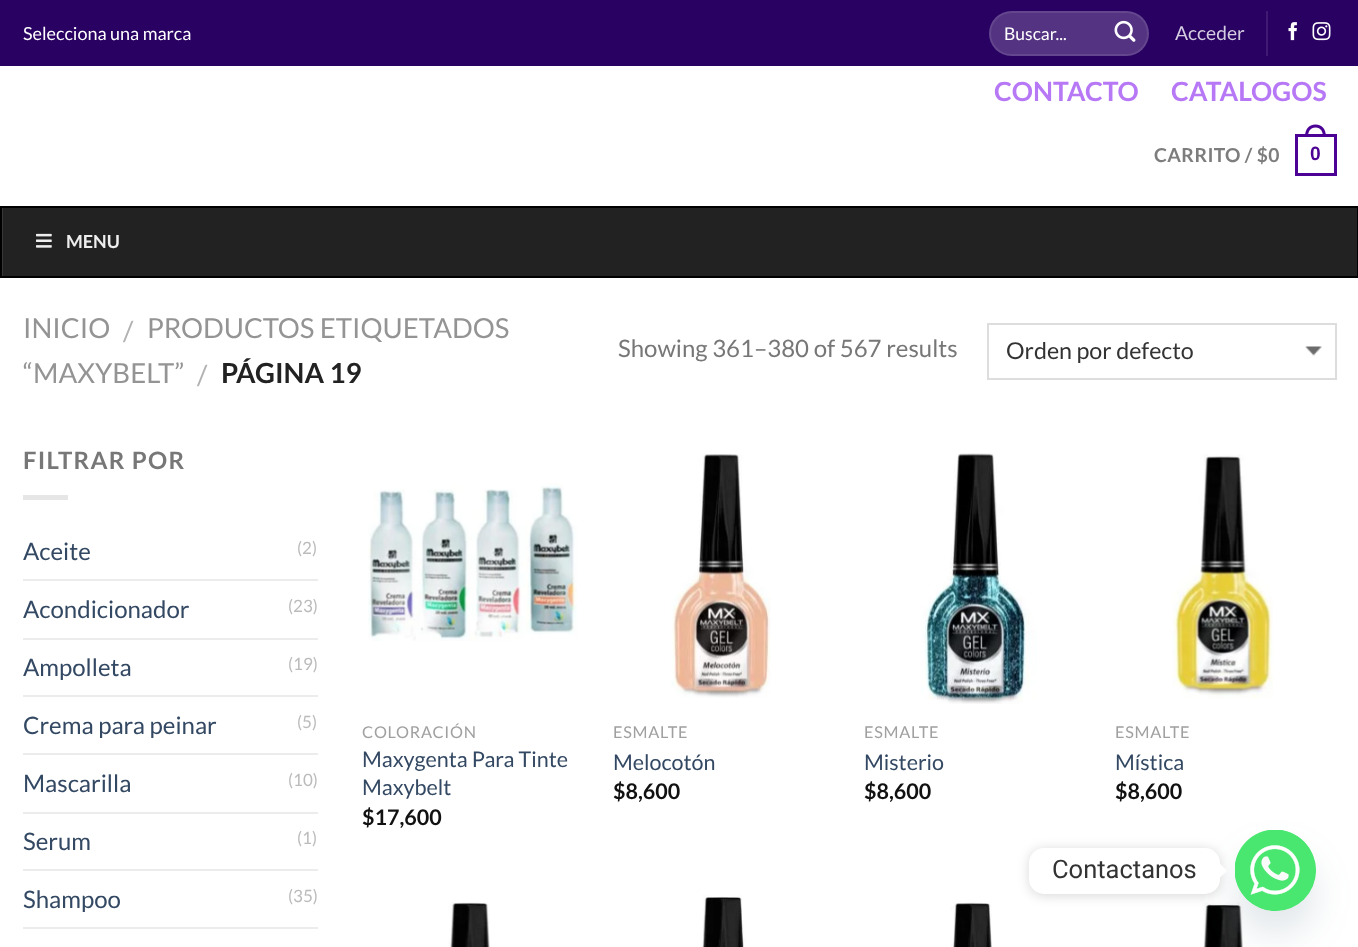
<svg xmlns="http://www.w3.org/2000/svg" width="1358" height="947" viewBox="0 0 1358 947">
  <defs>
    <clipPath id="clip1"><path d="M2 207h1356v69H2z"/></clipPath>
  </defs>
  <rect width="100%" height="100%" fill="#fff"/>
  <path d="M0 0h1358v66H0z" fill="#290163"/>
  <rect x="989" y="11" width="160" height="45" rx="22.5" fill="#543482"/>
  <rect x="990" y="12" width="158" height="43" rx="21.5" fill="none" stroke="#ffffff17" stroke-width="2"/>
  <image x="1114" y="20" width="22" height="22" href="img/1.png"/>
  <path d="M1266 11h2v45H1266z" fill="#3e1a73"/>
  <image x="1288" y="22" width="9" height="19" href="img/2.png"/>
  <image x="1312" y="22" width="19" height="19" href="img/3.png"/>
  <path d="M1296.5 135.5h39v39H1296.5z" fill="none" stroke="#4c0395" stroke-width="3"/>
  <path d="M1315.5 124.5C1322.5 124.5 1326 130 1326 136.5H1305C1305 130 1308.5 124.5 1315.5 124.5ZM1315.5 127.5C1321 127.5 1323 132 1323 136.5H1308C1308 132 1310 127.5 1315.5 127.5Z" fill="#4c0395" fill-rule="evenodd"/>
  <path d="M3 208h1354v68H3z" fill="#222"/>
  <g clip-path="url(#clip1)">
    <path d="M-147 58H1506V424H-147ZM3 208H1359V278H3Z" fill="#383838" fill-rule="evenodd"/>
  </g>
  <path d="M1 207h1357v70H1z" fill="none" stroke="#000" stroke-width="2"/>
  <image x="36" y="233" width="16" height="15" href="img/4.png"/>
  <image x="1305" y="346" width="17" height="10" href="img/5.png"/>
  <path d="M988 324h348v55H988z" fill="none" stroke="#ddd" stroke-width="2"/>
  <path d="M23 495h45v5H23z" fill="#e6e6e6"/>
  <path d="M23 579h295v2H23z" fill="#ececec"/>
  <path d="M23 638h295v2H23z" fill="#ececec"/>
  <path d="M23 695h295v2H23z" fill="#ececec"/>
  <path d="M23 753h295v2H23z" fill="#ececec"/>
  <path d="M23 812h295v2H23z" fill="#ececec"/>
  <path d="M23 869h295v2H23z" fill="#ececec"/>
  <path d="M23 927h295v2H23z" fill="#ececec"/>
  <image x="368" y="483" width="209" height="158" href="img/6.png"/>
  <image x="671" y="454" width="100" height="244" href="img/7.png"/>
  <image x="921" y="453" width="116" height="251" href="img/8.png"/>
  <image x="1172" y="454" width="101" height="245" href="img/9.png"/>
  <image x="448" y="902" width="42" height="45" href="img/10.png"/>
  <image x="702" y="895" width="44" height="52" href="img/11.png"/>
  <image x="950" y="902" width="42" height="45" href="img/12.png"/>
  <image x="1203" y="902" width="40" height="45" href="img/13.png"/>
  <rect x="1235" y="854" width="81" height="81" rx="40.5" fill="#49687e29" filter="blur(18px)"/>
  <circle cx="1275.5" cy="870.5" r="40.5" fill="#49e670"/>
  <image x="1235" y="830" width="81" height="81" href="img/14.png"/>
  <rect x="1029" y="849" width="191" height="47" rx="15" fill="#00000026" filter="blur(6px)"/>
  <rect x="1029" y="848" width="191" height="46" rx="15" fill="#fff"/>
  <path d="M1219.5 878V863L1227 871Z" fill="#fff"/>
  <text x="23" y="40" font-family="Lato" font-size="18" fill="#fff">Selecciona una marca</text>
  <text x="1004" y="40" font-family="Lato" font-size="17.5" fill="#fff">Buscar...</text>
  <text x="1175" y="40" font-family="Lato" font-size="19.25" fill="#d4cce0">Acceder</text>
  <g font-family="Lato" font-size="26.5" font-weight="bold" fill="#b778f6">
    <text x="994" y="101">CONTACTO</text>
    <text x="1171" y="101">CATALOGOS</text>
  </g>
  <text x="1154" y="162" font-family="Lato" font-size="19.25" font-weight="bold" letter-spacing="0.4" fill="#7d7d7d">CARRITO / $0</text>
  <text x="1310" y="160" font-family="Liberation Sans" font-size="19.25" font-weight="bold" letter-spacing="0.4" fill="#4c0395">0</text>
  <text x="66" y="248" font-family="Lato" font-size="18" font-weight="bold" fill="#eee">MENU</text>
  <text x="23" y="338" font-family="Lato" font-size="27.6" fill="#949494">INICIO</text>
  <text x="123" y="341" font-family="Lato" font-size="27.6" fill="#b2b2b2">/</text>
  <g font-family="Lato" font-size="27.6" fill="#949494">
    <text x="147" y="338">PRODUCTOS ETIQUETADOS</text>
    <text x="23" y="383">“MAXYBELT”</text>
  </g>
  <text x="197" y="385" font-family="Lato" font-size="27.6" fill="#b2b2b2">/</text>
  <text x="221" y="383" font-family="Lato" font-size="27.6" font-weight="bold" fill="#222">PÁGINA 19</text>
  <text x="618" y="357" font-family="Lato" font-size="24" fill="#777">Showing 361–380 of 567 results</text>
  <text x="1006" y="359" font-family="Lato" font-size="23.25" fill="#333">Orden por defecto</text>
  <text x="23" y="469" font-family="Lato" font-size="24" font-weight="bold" letter-spacing="1.25" fill="#777">FILTRAR POR</text>
  <text x="23" y="560" font-family="Lato" font-size="24" fill="#334862">Aceite</text>
  <text x="297" y="554" font-family="Lato" font-size="17" fill="#bbb">(2)</text>
  <text x="23" y="618" font-family="Lato" font-size="24" fill="#334862">Acondicionador</text>
  <text x="288" y="612" font-family="Lato" font-size="17" fill="#bbb">(23)</text>
  <text x="23" y="676" font-family="Lato" font-size="24" fill="#334862">Ampolleta</text>
  <text x="288" y="670" font-family="Lato" font-size="17" fill="#bbb">(19)</text>
  <text x="23" y="734" font-family="Lato" font-size="24" fill="#334862">Crema para peinar</text>
  <text x="297" y="728" font-family="Lato" font-size="17" fill="#bbb">(5)</text>
  <text x="23" y="792" font-family="Lato" font-size="24" fill="#334862">Mascarilla</text>
  <text x="288" y="786" font-family="Lato" font-size="17" fill="#bbb">(10)</text>
  <text x="23" y="850" font-family="Lato" font-size="24" fill="#334862">Serum</text>
  <text x="297" y="844" font-family="Lato" font-size="17" fill="#bbb">(1)</text>
  <text x="23" y="908" font-family="Lato" font-size="24" fill="#334862">Shampoo</text>
  <text x="288" y="902" font-family="Lato" font-size="17" fill="#bbb">(35)</text>
  <text x="362" y="738" font-family="Lato" font-size="16.25" letter-spacing="0.75" fill="#a0a0a0">COLORACIÓN</text>
  <g font-family="Lato" font-size="21.5" fill="#334862">
    <text x="362" y="767">Maxygenta Para Tinte</text>
    <text x="362" y="795">Maxybelt</text>
  </g>
  <text x="362" y="825" font-family="Lato" font-size="21.5" font-weight="bold" fill="#111">$17,600</text>
  <text x="613" y="738" font-family="Lato" font-size="16.25" letter-spacing="0.75" fill="#a0a0a0">ESMALTE</text>
  <text x="613" y="770" font-family="Lato" font-size="21.5" fill="#334862">Melocotón</text>
  <text x="613" y="799" font-family="Lato" font-size="21.5" font-weight="bold" fill="#111">$8,600</text>
  <text x="864" y="738" font-family="Lato" font-size="16.25" letter-spacing="0.75" fill="#a0a0a0">ESMALTE</text>
  <text x="864" y="770" font-family="Lato" font-size="21.5" fill="#334862">Misterio</text>
  <text x="864" y="799" font-family="Lato" font-size="21.5" font-weight="bold" fill="#111">$8,600</text>
  <text x="1115" y="738" font-family="Lato" font-size="16.25" letter-spacing="0.75" fill="#a0a0a0">ESMALTE</text>
  <text x="1115" y="770" font-family="Lato" font-size="21.5" fill="#334862">Mística</text>
  <text x="1115" y="799" font-family="Lato" font-size="21.5" font-weight="bold" fill="#111">$8,600</text>
  <text x="1052" y="878" font-family="Roboto" font-size="25.5" fill="#333">Contactanos</text>
</svg>
